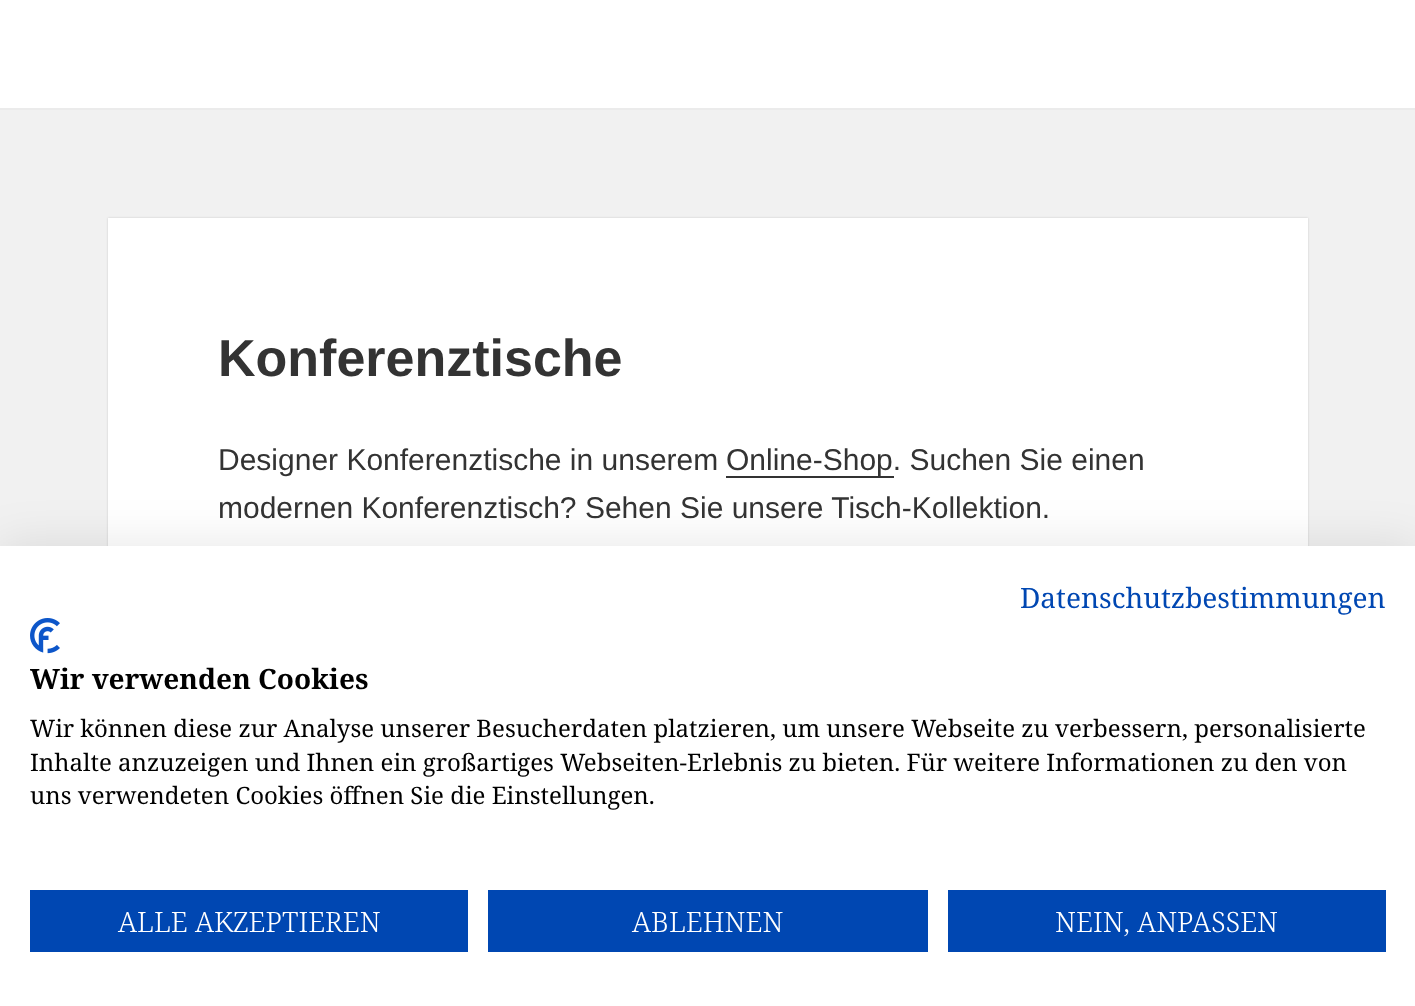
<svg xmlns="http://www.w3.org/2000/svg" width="1415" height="1006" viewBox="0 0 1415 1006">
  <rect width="100%" height="100%" fill="#f1f1f1"/>
  <path d="M0 0h1415v108H0z" fill="#fff"/>
  <path d="M0 108h1415v2H0z" fill="#ebebeb"/>
  <path d="M108 218h1200v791H108z" fill="#00000026" filter="blur(1px)"/>
  <path d="M108 218h1200v328H108z" fill="#fff"/>
  <path d="M726 476h168v2H726z" fill="#333"/>
  <path d="M0 546h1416v460H0z" fill="#0000001a" filter="blur(24px)"/>
  <path d="M0 546h1415v460H0z" fill="#fff"/>
  <image x="30" y="618" width="30" height="36" href="img/1.png"/>
  <path d="M30 890h438v62H30z" fill="#0047b2"/>
  <path d="M488 890h440v62H488z" fill="#0047b2"/>
  <path d="M948 890h438v62H948z" fill="#0047b2"/>
  <text x="218" y="376" font-family="Liberation Sans" font-size="52" font-weight="bold" fill="#333">Konferenztische</text>
  <g font-family="Liberation Sans" font-size="30" fill="#333">
    <text x="218" y="470">Designer Konferenztische in unserem</text>
    <text x="726" y="470">Online-Shop. Suchen Sie einen</text>
    <text x="218" y="518">modernen Konferenztisch? Sehen Sie unsere Tisch-Kollektion.</text>
  </g>
  <text x="1020" y="608" font-family="Noto Serif" font-size="28" fill="#0047b2">Datenschutzbestimmungen</text>
  <text x="30" y="689" font-family="Noto Serif" font-size="28" font-weight="bold" fill="#000">Wir verwenden Cookies</text>
  <g font-family="Noto Serif" font-size="24" fill="#000">
    <text x="30" y="737">Wir können diese zur Analyse unserer Besucherdaten platzieren, um unsere Webseite zu verbessern, personalisierte</text>
    <text x="30" y="771">Inhalte anzuzeigen und Ihnen ein großartiges Webseiten-Erlebnis zu bieten. Für weitere Informationen zu den von</text>
    <text x="30" y="804">uns verwendeten Cookies öffnen Sie die Einstellungen.</text>
  </g>
  <g font-family="Noto Serif" font-size="28" font-weight="300" fill="#fff">
    <text x="118" y="932">ALLE AKZEPTIEREN</text>
    <text x="632" y="932">ABLEHNEN</text>
    <text x="1055" y="932">NEIN, ANPASSEN</text>
  </g>
</svg>
